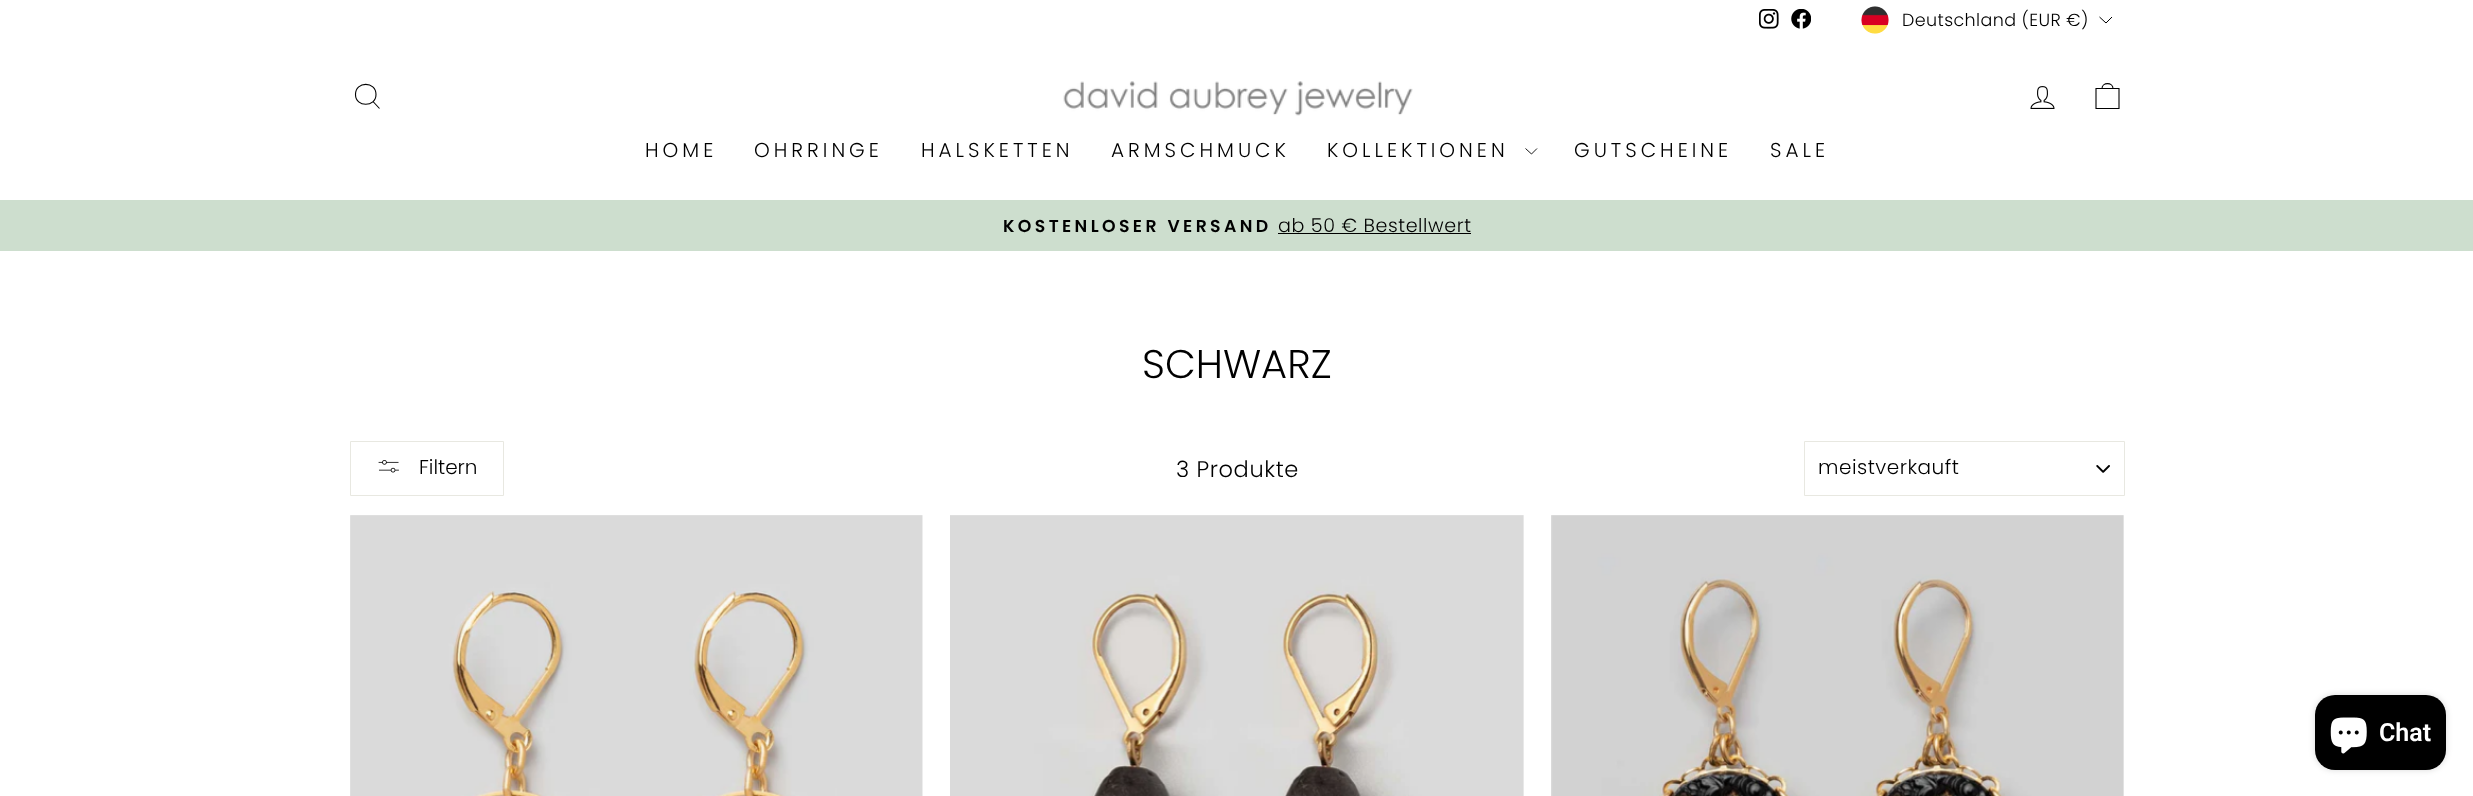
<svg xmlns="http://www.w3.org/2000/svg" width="2473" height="796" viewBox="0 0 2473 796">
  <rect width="100%" height="100%" fill="#fff"/>
  <image x="1759" y="9" width="20" height="20" href="img/1.png"/>
  <image x="1791" y="9" width="20" height="20" href="img/2.png"/>
  <image x="1861" y="6" width="28" height="28" href="img/3.png"/>
  <path d="M2099.5 17L2106 23L2112 17" fill="none" stroke="#000"/>
  <path d="M0 200h2473v51H0z" fill="#cddece"/>
  <path d="M0 40h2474v160H0z" fill="#00000033" filter="blur(0.5px)"/>
  <path d="M0 40h2473v160H0z" fill="#fff"/>
  <path d="M376 94.5C376 107.5 355.5 107.5 355.5 94.5C355.5 81 376 81 376 94.5ZM379.5 108.5L373 101.5" fill="none" stroke="#000" stroke-width="1.1"/>
  <image x="1063" y="81" width="350" height="35" href="img/4.png"/>
  <image x="2030" y="86" width="25" height="23" href="img/5.png"/>
  <path d="M2096 88.5H2119V108.5H2096ZM2102 88.5C2102 82 2113 82 2113 88.5" fill="none" stroke="#000" stroke-width="1.1"/>
  <path d="M1525.5 148.5L1531.5 154L1537 148.5" fill="none" stroke="#000" stroke-width="0.9"/>
  <path d="M1278 233h193v1H1278z" fill="#000"/>
  <path d="M350.5 441.5h153v54H350.5z" fill="none" stroke="#e8e8e1"/>
  <image x="378" y="460" width="21" height="13" href="img/6.png"/>
  <image x="2096" y="465" width="14" height="8" href="img/7.png"/>
  <path d="M1804.5 441.5h320v54H1804.5z" fill="none" stroke="#e8e8e1"/>
  <image x="350" y="515" width="573" height="281" href="img/8.png"/>
  <image x="950" y="515" width="574" height="281" href="img/9.png"/>
  <image x="1551" y="515" width="573" height="281" href="img/10.png"/>
  <rect x="2315" y="695" width="131" height="75" rx="20" fill="#00000026" filter="blur(3px)"/>
  <rect x="2315" y="695" width="131" height="75" rx="20" fill="#000"/>
  <image x="2330" y="717" width="37" height="37" href="img/11.png"/>
  <text x="1902" y="26" font-family="Poppins" font-size="17.5" font-weight="300" letter-spacing="0.4" fill="#000">Deutschland (EUR €)</text>
  <g font-family="Poppins" font-size="20" font-weight="300" letter-spacing="4" fill="#000">
    <text x="645" y="157">HOME</text>
    <text x="754" y="157">OHRRINGE</text>
    <text x="921" y="157">HALSKETTEN</text>
    <text x="1111" y="157">ARMSCHMUCK</text>
    <text x="1327" y="157">KOLLEKTIONEN</text>
    <text x="1574" y="157">GUTSCHEINE</text>
    <text x="1770" y="157">SALE</text>
  </g>
  <text x="1003" y="232" font-family="Poppins" font-size="17.25" font-weight="600" letter-spacing="3.4" fill="#000">KOSTENLOSER VERSAND</text>
  <text x="1278" y="232" font-family="Poppins" font-size="19.1" font-weight="300" letter-spacing="0.6" fill="#000">ab 50 € Bestellwert</text>
  <text x="1142" y="378" font-family="Poppins" font-size="40" font-weight="300" fill="#000">SCHWARZ</text>
  <text x="419" y="474" font-family="Poppins" font-size="20" font-weight="300" fill="#000">Filtern</text>
  <text x="1176" y="477" font-family="Poppins" font-size="22.5" font-weight="300" letter-spacing="0.6" fill="#000">3 Produkte</text>
  <text x="1818" y="474" font-family="Poppins" font-size="20" font-weight="300" letter-spacing="0.5" fill="#000">meistverkauft</text>
  <text x="2379" y="741" font-family="Roboto" font-size="25" font-weight="600" fill="#fff">Chat</text>
</svg>
